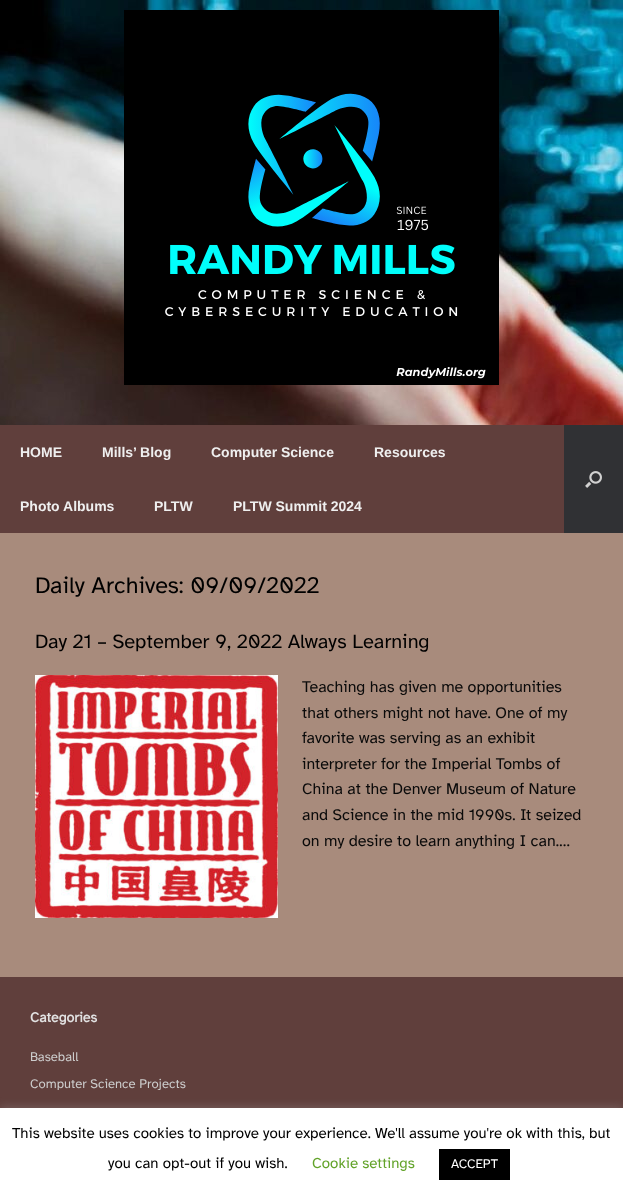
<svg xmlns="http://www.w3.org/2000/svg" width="623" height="1197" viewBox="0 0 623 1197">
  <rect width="100%" height="100%" fill="#603f3c"/>
  <image x="0" y="0" width="623" height="425" href="img/1.png"/>
  <image x="124" y="10" width="375" height="375" href="img/2.png"/>
  <path d="M564 425h59v108H564z" fill="#303134"/>
  <image x="585" y="471" width="17" height="17" href="img/3.png"/>
  <path d="M0 533h623v444H0z" fill="#a88b7c"/>
  <image x="35" y="675" width="243" height="243" href="img/4.png"/>
  <path d="M0 1107h623v89H0z" fill="#acabab4d" filter="blur(5px)"/>
  <path d="M0 1108h623v89H0z" fill="#fff"/>
  <path d="M439 1149h71v31H439z" fill="#000"/>
  <g font-family="Liberation Sans" font-size="14" font-weight="bold" fill="#efefef">
    <text x="20" y="457">HOME</text>
    <text x="102" y="457">Mills’ Blog</text>
    <text x="211" y="457">Computer Science</text>
    <text x="374" y="457">Resources</text>
    <text x="20" y="511">Photo Albums</text>
    <text x="154" y="511">PLTW</text>
    <text x="233" y="511">PLTW Summit 2024</text>
  </g>
  <text x="35" y="593" font-family="Atkinson Hyperlegible" font-size="23.4" fill="#000">Daily Archives: 09/09/2022</text>
  <text x="35" y="648" font-family="Atkinson Hyperlegible" font-size="20" fill="#000">Day 21 – September 9, 2022 Always Learning</text>
  <g font-family="Atkinson Hyperlegible" font-size="16" fill="#0a0a0a">
    <text x="302" y="692">Teaching has given me opportunities</text>
    <text x="302" y="718">that others might not have. One of my</text>
    <text x="302" y="743">favorite was serving as an exhibit</text>
    <text x="302" y="769">interpreter for the Imperial Tombs of</text>
    <text x="302" y="794">China at the Denver Museum of Nature</text>
    <text x="302" y="820">and Science in the mid 1990s. It seized</text>
    <text x="302" y="846">on my desire to learn anything I can.…</text>
  </g>
  <text x="30" y="1022" font-family="Atkinson Hyperlegible" font-size="14" font-weight="bold" fill="#e2e2e2">Categories</text>
  <g font-family="Atkinson Hyperlegible" font-size="13" fill="#ccc">
    <text x="30" y="1061">Baseball</text>
    <text x="30" y="1088">Computer Science Projects</text>
  </g>
  <g font-family="Atkinson Hyperlegible" font-size="15" fill="#000">
    <text x="12" y="1138">This website uses cookies to improve your experience. We'll assume you're ok with this, but</text>
    <text x="108" y="1168">you can opt-out if you wish.</text>
  </g>
  <text x="312" y="1168" font-family="Atkinson Hyperlegible" font-size="15" fill="#62a329">Cookie settings</text>
  <text x="451" y="1168" font-family="Atkinson Hyperlegible" font-size="13" fill="#fff">ACCEPT</text>
</svg>
